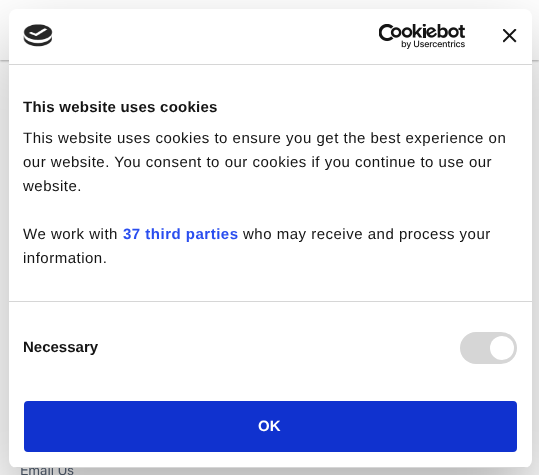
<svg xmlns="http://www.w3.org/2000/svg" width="539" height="475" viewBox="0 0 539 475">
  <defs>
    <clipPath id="clip1"><rect x="9" y="9" width="523" height="459" rx="8"/></clipPath>
  </defs>
  <rect width="100%" height="100%" fill="#fff"/>
  <path d="M0 1h539v60H0z" fill="#0000004d" filter="blur(1px)"/>
  <path d="M0 0h539v60H0z" fill="#fff"/>
  <rect x="9" y="41" width="523" height="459" rx="8" fill="#0000004d" filter="blur(34px)"/>
  <text x="20" y="475" font-family="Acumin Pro" font-size="14" fill="#444e5c">Email Us</text>
  <rect x="9" y="9" width="523" height="459" rx="8" fill="#fff"/>
  <rect x="25" y="402" width="491" height="49" rx="3" fill="#1032cf" stroke="#1032cf" stroke-width="2"/>
  <text x="258" y="431" font-family="Liberation Sans" font-size="15" font-weight="bold" fill="#fff">OK</text>
  <g clip-path="url(#clip1)">
    <path d="M9 467h523v1H9z" fill="#d6d6d6"/>
  </g>
  <rect x="460" y="332" width="57" height="32" rx="16" fill="#d6d6d6"/>
  <circle cx="502" cy="348" r="12" fill="#fff"/>
  <g font-family="Liberation Sans" font-size="15" letter-spacing="0.5" fill="#141414">
    <text x="23" y="263">information.</text>
    <text x="243" y="239">who may receive and process your</text>
  </g>
  <text x="123" y="239" font-family="Liberation Sans" font-size="15" font-weight="bold" letter-spacing="0.5" fill="#2a4eef">37 third parties</text>
  <g font-family="Liberation Sans" font-size="15" letter-spacing="0.5" fill="#141414">
    <text x="23" y="239">We work with</text>
    <text x="23" y="191">website.</text>
    <text x="23" y="167">our website. You consent to our cookies if you continue to use our</text>
    <text x="23" y="143">This website uses cookies to ensure you get the best experience on</text>
  </g>
  <text x="23" y="112" font-family="Liberation Sans" font-size="15" font-weight="bold" letter-spacing="0.25" fill="#141414">This website uses cookies</text>
  <path d="M9 301h523v1H9z" fill="#d6d6d6"/>
  <text x="23" y="352" font-family="Liberation Sans" font-size="15" font-weight="bold" fill="#141414">Necessary</text>
  <image x="503" y="29" width="14" height="14" href="img/3.png"/>
  <image x="379" y="24" width="87" height="25" href="img/2.png"/>
  <image x="23" y="24" width="30" height="23" href="img/1.png"/>
  <path d="M9 64h523v1H9z" fill="#d6d6d6"/>
</svg>
